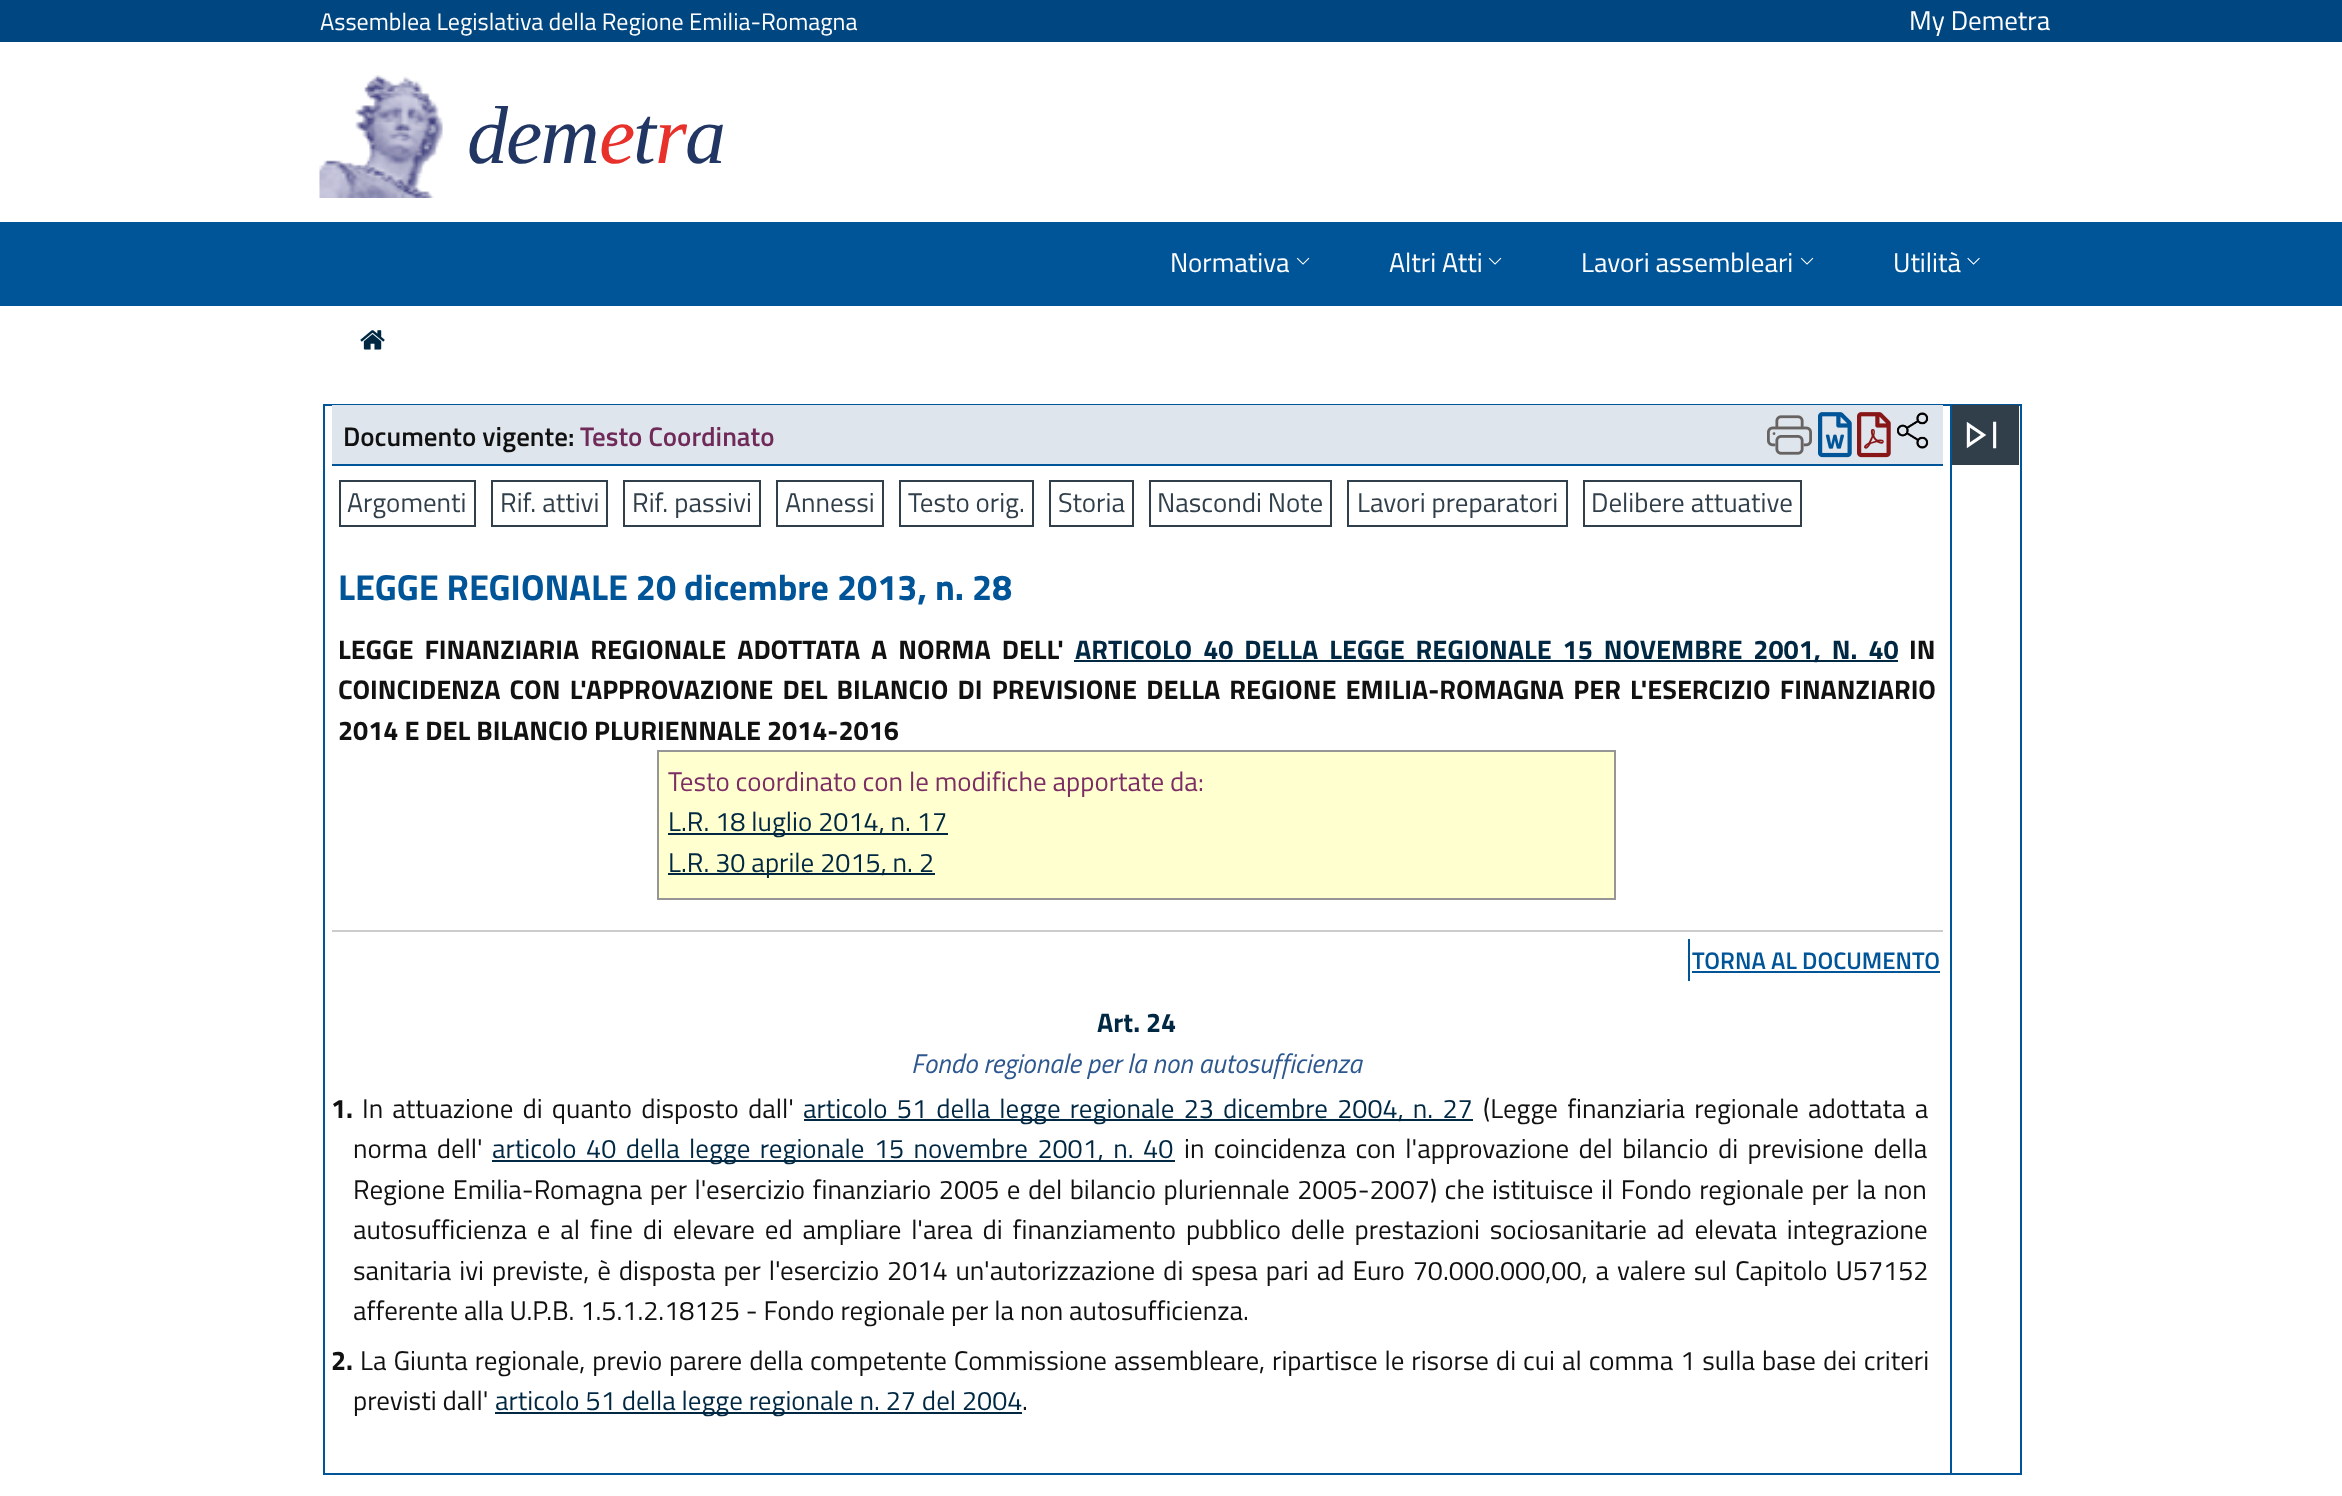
<svg xmlns="http://www.w3.org/2000/svg" width="2342" height="1496" viewBox="0 0 2342 1496">
  <rect width="100%" height="100%" fill="#004680"/>
  <path d="M0 42h2342v180H0z" fill="#fff"/>
  <image x="319" y="75" width="124" height="123" href="img/1.png"/>
  <path d="M0 222h2342v84H0z" fill="#005498"/>
  <image x="1296" y="257" width="14" height="8" href="img/2.png"/>
  <image x="1488" y="257" width="14" height="8" href="img/2.png"/>
  <image x="1800" y="257" width="14" height="8" href="img/2.png"/>
  <image x="1967" y="257" width="13" height="8" href="img/3.png"/>
  <path d="M0 306h2342v1190H0z" fill="#fff"/>
  <image x="360" y="330" width="25" height="20" href="img/4.png"/>
  <path d="M324 405h1697v1069H324z" fill="none" stroke="#005498" stroke-width="2"/>
  <path d="M1950 405h2v1068H1950z" fill="#005498"/>
  <path d="M332 405h1611v59H332z" fill="#dfe5ec"/>
  <path d="M332 464h1611v2H332z" fill="#005498"/>
  <image x="1767" y="415" width="45" height="40" href="img/5.png"/>
  <image x="1818" y="412" width="34" height="46" href="img/6.png"/>
  <image x="1857" y="412" width="34" height="46" href="img/7.png"/>
  <image x="1897" y="412" width="32" height="37" href="img/8.png"/>
  <path d="M340 481h135v45H340z" fill="none" stroke="#303f4a" stroke-width="2"/>
  <path d="M492 481h115v45H492z" fill="none" stroke="#303f4a" stroke-width="2"/>
  <path d="M624 481h136v45H624z" fill="none" stroke="#303f4a" stroke-width="2"/>
  <path d="M777 481h106v45H777z" fill="none" stroke="#303f4a" stroke-width="2"/>
  <path d="M900 481h133v45H900z" fill="none" stroke="#303f4a" stroke-width="2"/>
  <path d="M1050 481h83v45H1050z" fill="none" stroke="#303f4a" stroke-width="2"/>
  <path d="M1150 481h181v45H1150z" fill="none" stroke="#303f4a" stroke-width="2"/>
  <path d="M1348 481h219v45H1348z" fill="none" stroke="#303f4a" stroke-width="2"/>
  <path d="M1584 481h217v45H1584z" fill="none" stroke="#303f4a" stroke-width="2"/>
  <path d="M1074 660h824v2H1074z" fill="#002843"/>
  <path d="M658 751h957v148H658z" fill="#ffffcf" stroke="#969696" stroke-width="2"/>
  <path d="M668 833h280v2H668z" fill="#002843"/>
  <path d="M668 873h267v2H668z" fill="#002843"/>
  <path d="M332 930h1611v2H332z" fill="#ccc"/>
  <path d="M1688 939h2v42H1688z" fill="#005498"/>
  <path d="M1692 971h248v2H1692z" fill="#005498"/>
  <path d="M804 1119h669v2H804z" fill="#002843"/>
  <path d="M492 1160h683v2H492z" fill="#002843"/>
  <path d="M495 1412h527v2H495z" fill="#002843"/>
  <path d="M1952 405h67v60H1952z" fill="#303f4a"/>
  <image x="1966" y="421" width="31" height="28" href="img/9.png"/>
  <text x="320" y="30" font-family="Titillium Web" font-size="24" fill="#fff">Assemblea Legislativa della Regione Emilia-Romagna</text>
  <text x="1909" y="30" font-family="Titillium Web" font-size="27" fill="#fff">My Demetra</text>
  <text x="467" y="163" font-family="Liberation Serif" font-size="82" font-style="italic" letter-spacing="-2" fill="#223664">dem</text>
  <text x="599" y="163" font-family="Liberation Serif" font-size="82" font-style="italic" letter-spacing="-2" fill="#e7312a">e</text>
  <text x="633" y="163" font-family="Liberation Serif" font-size="82" font-style="italic" letter-spacing="-2" fill="#223664">t</text>
  <text x="655" y="163" font-family="Liberation Serif" font-size="82" font-style="italic" letter-spacing="-2" fill="#e7312a">r</text>
  <text x="685" y="163" font-family="Liberation Serif" font-size="82" font-style="italic" letter-spacing="-2" fill="#223664">a</text>
  <g font-family="Titillium Web" font-size="27" fill="#fff">
    <text x="1170" y="272">Normativa</text>
    <text x="1389" y="272">Altri Atti</text>
    <text x="1581" y="272">Lavori assembleari</text>
    <text x="1893" y="272">Utilità</text>
  </g>
  <text x="343" y="446" font-family="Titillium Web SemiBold" font-size="27" font-weight="600" fill="#111">Documento vigente:</text>
  <text x="580" y="446" font-family="Titillium Web SemiBold" font-size="27" font-weight="600" fill="#6f2a59">Testo Coordinato</text>
  <g font-family="Titillium Web" font-size="27" fill="#303f4a">
    <text x="347" y="512">Argomenti</text>
    <text x="500" y="512">Rif. attivi</text>
    <text x="632" y="512">Rif. passivi</text>
    <text x="785" y="512">Annessi</text>
    <text x="908" y="512">Testo orig.</text>
    <text x="1058" y="512">Storia</text>
    <text x="1157" y="512">Nascondi Note</text>
    <text x="1357" y="512">Lavori preparatori</text>
    <text x="1591" y="512">Delibere attuative</text>
  </g>
  <text x="338" y="600" font-family="Titillium Web" font-size="36" font-weight="bold" fill="#005498">LEGGE REGIONALE 20 dicembre 2013, n. 28</text>
  <text x="338" y="659" word-spacing="5" font-family="Titillium Web" font-size="27" font-weight="bold" fill="#111">LEGGE FINANZIARIA REGIONALE ADOTTATA A NORMA DELL'</text>
  <text x="1075" y="659" word-spacing="5" font-family="Titillium Web" font-size="27" font-weight="bold" fill="#002843">ARTICOLO 40 DELLA LEGGE REGIONALE 15 NOVEMBRE 2001, N. 40</text>
  <g font-family="Titillium Web" font-size="27" font-weight="bold" fill="#111">
    <text x="1909" y="659">IN</text>
    <text x="338" y="699" word-spacing="3.25">COINCIDENZA CON L'APPROVAZIONE DEL BILANCIO DI PREVISIONE DELLA REGIONE EMILIA-ROMAGNA PER L'ESERCIZIO FINANZIARIO</text>
    <text x="338" y="740">2014 E DEL BILANCIO PLURIENNALE 2014-2016</text>
  </g>
  <text x="668" y="791" font-family="Titillium Web" font-size="27" fill="#7b2d64">Testo coordinato con le modifiche apportate da:</text>
  <g font-family="Titillium Web" font-size="27" fill="#002843">
    <text x="668" y="831">L.R. 18 luglio 2014, n. 17</text>
    <text x="668" y="872">L.R. 30 aprile 2015, n. 2</text>
  </g>
  <text x="1692" y="969" font-family="Titillium Web SemiBold" font-size="24" font-weight="600" fill="#005498">TORNA AL DOCUMENTO</text>
  <text x="1097" y="1032" font-family="Titillium Web" font-size="27" font-weight="bold" fill="#002843">Art. 24</text>
  <text x="911" y="1073" font-family="Titillium Web" font-size="27" font-style="italic" fill="#2d578f">Fondo regionale per la non autosufficienza</text>
  <text x="331" y="1118" font-family="Titillium Web" font-size="27" font-weight="bold" fill="#111">1.</text>
  <text x="362" y="1118" word-spacing="3.25" font-family="Titillium Web" font-size="27" fill="#111">In attuazione di quanto disposto dall'</text>
  <text x="803" y="1118" word-spacing="3.25" font-family="Titillium Web" font-size="27" fill="#002843">articolo 51 della legge regionale 23 dicembre 2004, n. 27</text>
  <g font-family="Titillium Web" font-size="27" fill="#111">
    <text x="1483" y="1118" word-spacing="3.25">(Legge finanziaria regionale adottata a</text>
    <text x="353" y="1158" word-spacing="3.5">norma dell'</text>
  </g>
  <text x="492" y="1158" word-spacing="3.5" font-family="Titillium Web" font-size="27" fill="#002843">articolo 40 della legge regionale 15 novembre 2001, n. 40</text>
  <g font-family="Titillium Web" font-size="27" fill="#111">
    <text x="1184" y="1158" word-spacing="3.5">in coincidenza con l'approvazione del bilancio di previsione della</text>
    <text x="353" y="1199" word-spacing="1.6">Regione Emilia-Romagna per l'esercizio finanziario 2005 e del bilancio pluriennale 2005-2007) che istituisce il Fondo regionale per la non</text>
    <text x="353" y="1239" word-spacing="3.9">autosufficienza e al fine di elevare ed ampliare l'area di finanziamento pubblico delle prestazioni sociosanitarie ad elevata integrazione</text>
    <text x="353" y="1280" word-spacing="2">sanitaria ivi previste, è disposta per l'esercizio 2014 un'autorizzazione di spesa pari ad Euro 70.000.000,00, a valere sul Capitolo U57152</text>
    <text x="353" y="1320">afferente alla U.P.B. 1.5.1.2.18125 - Fondo regionale per la non autosufficienza.</text>
  </g>
  <text x="331" y="1370" font-family="Titillium Web" font-size="27" font-weight="bold" fill="#111">2.</text>
  <g font-family="Titillium Web" font-size="27" fill="#111">
    <text x="360" y="1370" word-spacing="1">La Giunta regionale, previo parere della competente Commissione assembleare, ripartisce le risorse di cui al comma 1 sulla base dei criteri</text>
    <text x="353" y="1410">previsti dall'</text>
  </g>
  <text x="495" y="1410" font-family="Titillium Web" font-size="27" fill="#002843">articolo 51 della legge regionale n. 27 del 2004</text>
  <text x="1022" y="1410" font-family="Titillium Web" font-size="27" fill="#111">.</text>
</svg>
